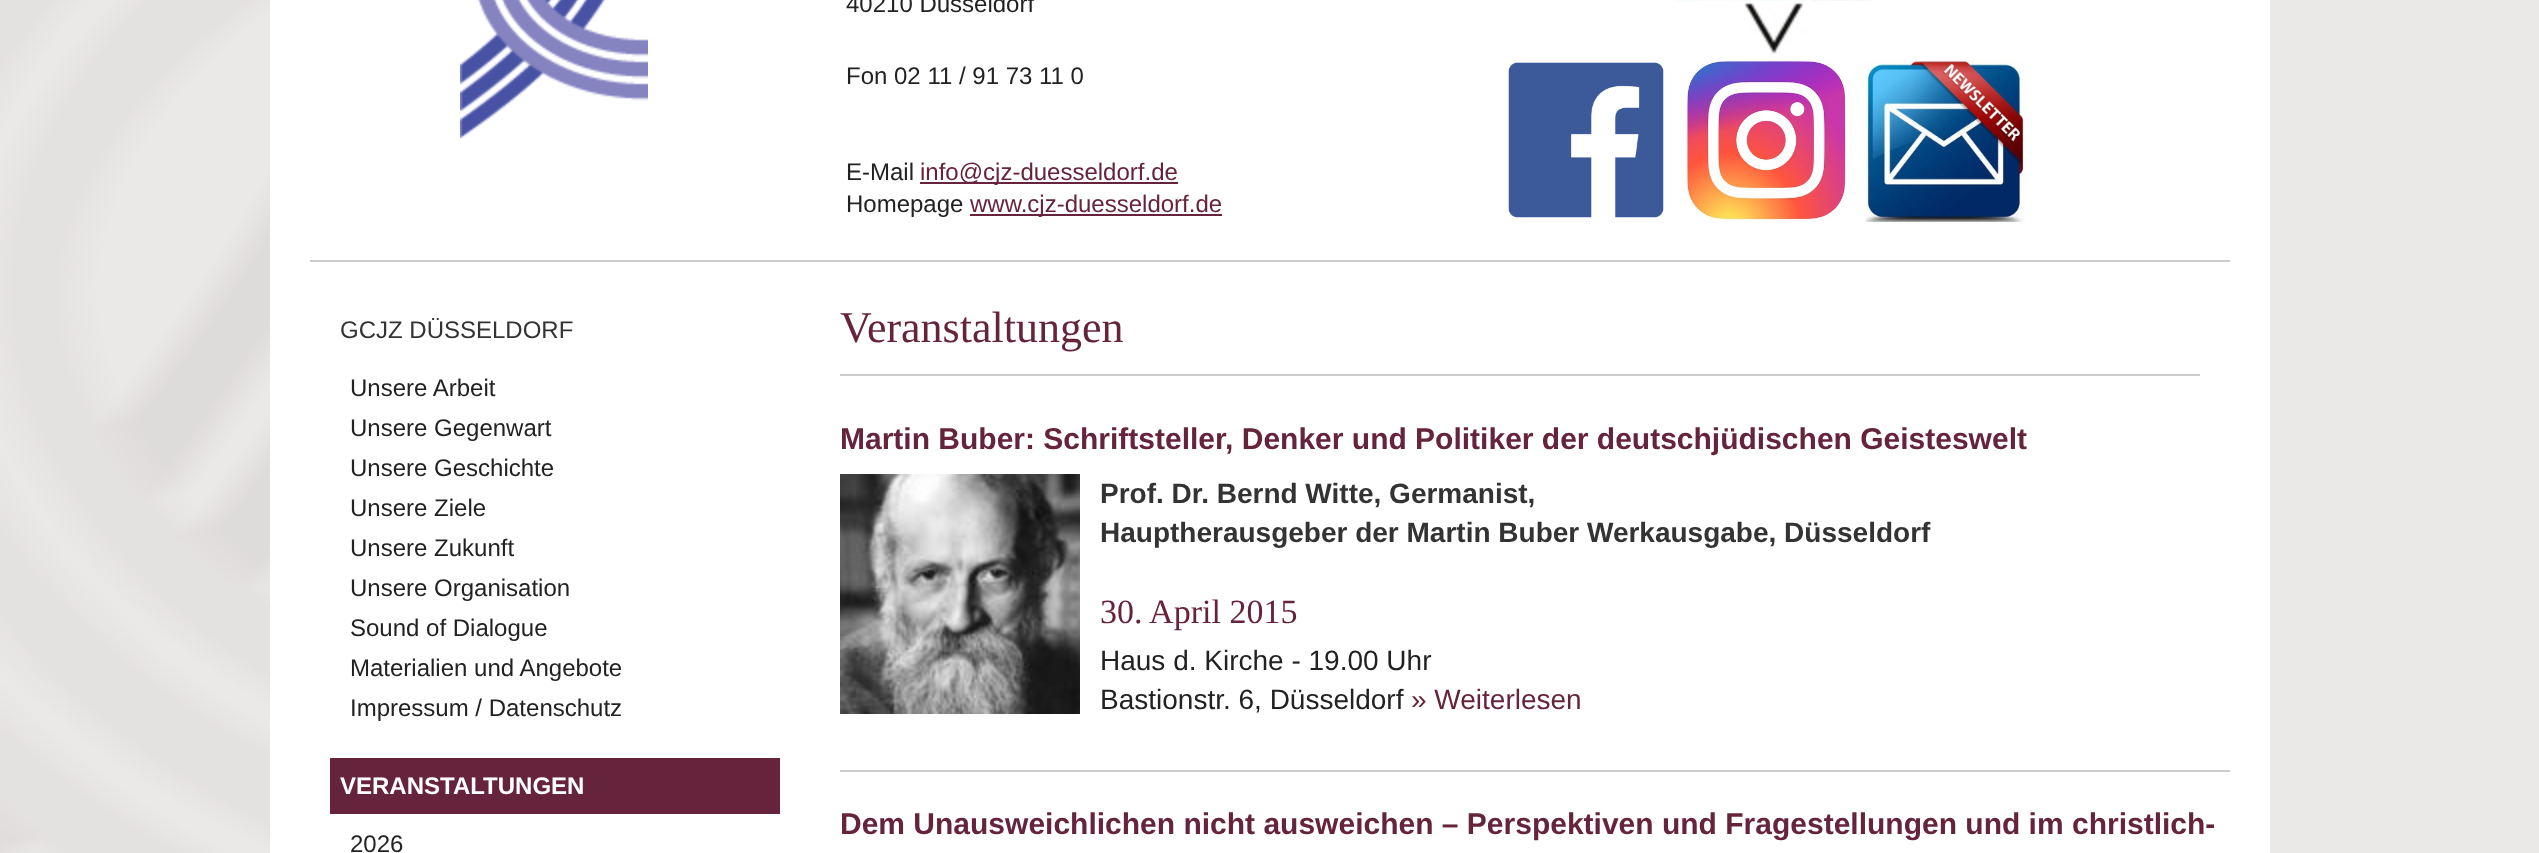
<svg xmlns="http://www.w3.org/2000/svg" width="2539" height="853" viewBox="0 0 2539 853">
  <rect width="100%" height="100%" fill="#ebe9e8"/>
  <image x="0" y="0" width="270" height="853" href="img/1.png"/>
  <path d="M270 0h2000v853H270z" fill="#fff"/>
  <path d="M310 260h1920v2H310z" fill="#ccc"/>
  <image x="460" y="0" width="188" height="138" href="img/2.png"/>
  <image x="1674" y="0" width="197" height="54" href="img/3.png"/>
  <image x="1508" y="62" width="156" height="156" href="img/4.png"/>
  <image x="1686" y="60" width="160" height="160" href="img/5.png"/>
  <image x="1866" y="60" width="159" height="162" href="img/6.png"/>
  <path d="M920 182h258v2H920z" fill="#66233c"/>
  <path d="M970 214h252v2H970z" fill="#66233c"/>
  <path d="M330 758h450v56H330z" fill="#66233c"/>
  <path d="M840 374h1360v2H840z" fill="#ccc"/>
  <path d="M840 770h1390v2H840z" fill="#ccc"/>
  <image x="840" y="474" width="240" height="240" href="img/7.png"/>
  <g font-family="Liberation Sans" font-size="24" fill="#222">
    <text x="846" y="12">40210 Düsseldorf</text>
    <text x="846" y="84">Fon 02 11 / 91 73 11 0</text>
    <text x="846" y="180">E-Mail</text>
  </g>
  <text x="920" y="180" font-family="Liberation Sans" font-size="24" fill="#66233c">info@cjz-duesseldorf.de</text>
  <text x="846" y="212" font-family="Liberation Sans" font-size="24" fill="#222">Homepage</text>
  <text x="970" y="212" font-family="Liberation Sans" font-size="24" fill="#66233c">www.cjz-duesseldorf.de</text>
  <text x="340" y="338" font-family="Liberation Sans" font-size="24" fill="#333">GCJZ DÜSSELDORF</text>
  <g font-family="Liberation Sans" font-size="24" fill="#222">
    <text x="350" y="396">Unsere Arbeit</text>
    <text x="350" y="436">Unsere Gegenwart</text>
    <text x="350" y="476">Unsere Geschichte</text>
    <text x="350" y="516">Unsere Ziele</text>
    <text x="350" y="556">Unsere Zukunft</text>
    <text x="350" y="596">Unsere Organisation</text>
    <text x="350" y="636">Sound of Dialogue</text>
    <text x="350" y="676">Materialien und Angebote</text>
    <text x="350" y="716">Impressum / Datenschutz</text>
  </g>
  <text x="340" y="794" font-family="Liberation Sans" font-size="24" font-weight="bold" fill="#fff">VERANSTALTUNGEN</text>
  <text x="350" y="852" font-family="Liberation Sans" font-size="24" fill="#222">2026</text>
  <text x="840" y="342" font-family="Liberation Serif" font-size="44" fill="#66233c">Veranstaltungen</text>
  <text x="840" y="449" font-family="Liberation Sans" font-size="30" font-weight="bold" fill="#66233c">Martin Buber: Schriftsteller, Denker und Politiker der deutschjüdischen Geisteswelt</text>
  <g font-family="Liberation Sans" font-size="28" font-weight="bold" fill="#333">
    <text x="1100" y="503">Prof. Dr. Bernd Witte, Germanist,</text>
    <text x="1100" y="542">Hauptherausgeber der Martin Buber Werkausgabe, Düsseldorf</text>
  </g>
  <text x="1100" y="623" font-family="Liberation Serif" font-size="34" fill="#66233c">30. April 2015</text>
  <g font-family="Liberation Sans" font-size="28" fill="#222">
    <text x="1100" y="670">Haus d. Kirche - 19.00 Uhr</text>
    <text x="1100" y="709">Bastionstr. 6, Düsseldorf</text>
  </g>
  <text x="1411" y="709" font-family="Liberation Sans" font-size="28" fill="#66233c">» Weiterlesen</text>
  <text x="840" y="834" font-family="Liberation Sans" font-size="30" font-weight="bold" fill="#66233c">Dem Unausweichlichen nicht ausweichen – Perspektiven und Fragestellungen und im christlich-</text>
</svg>
